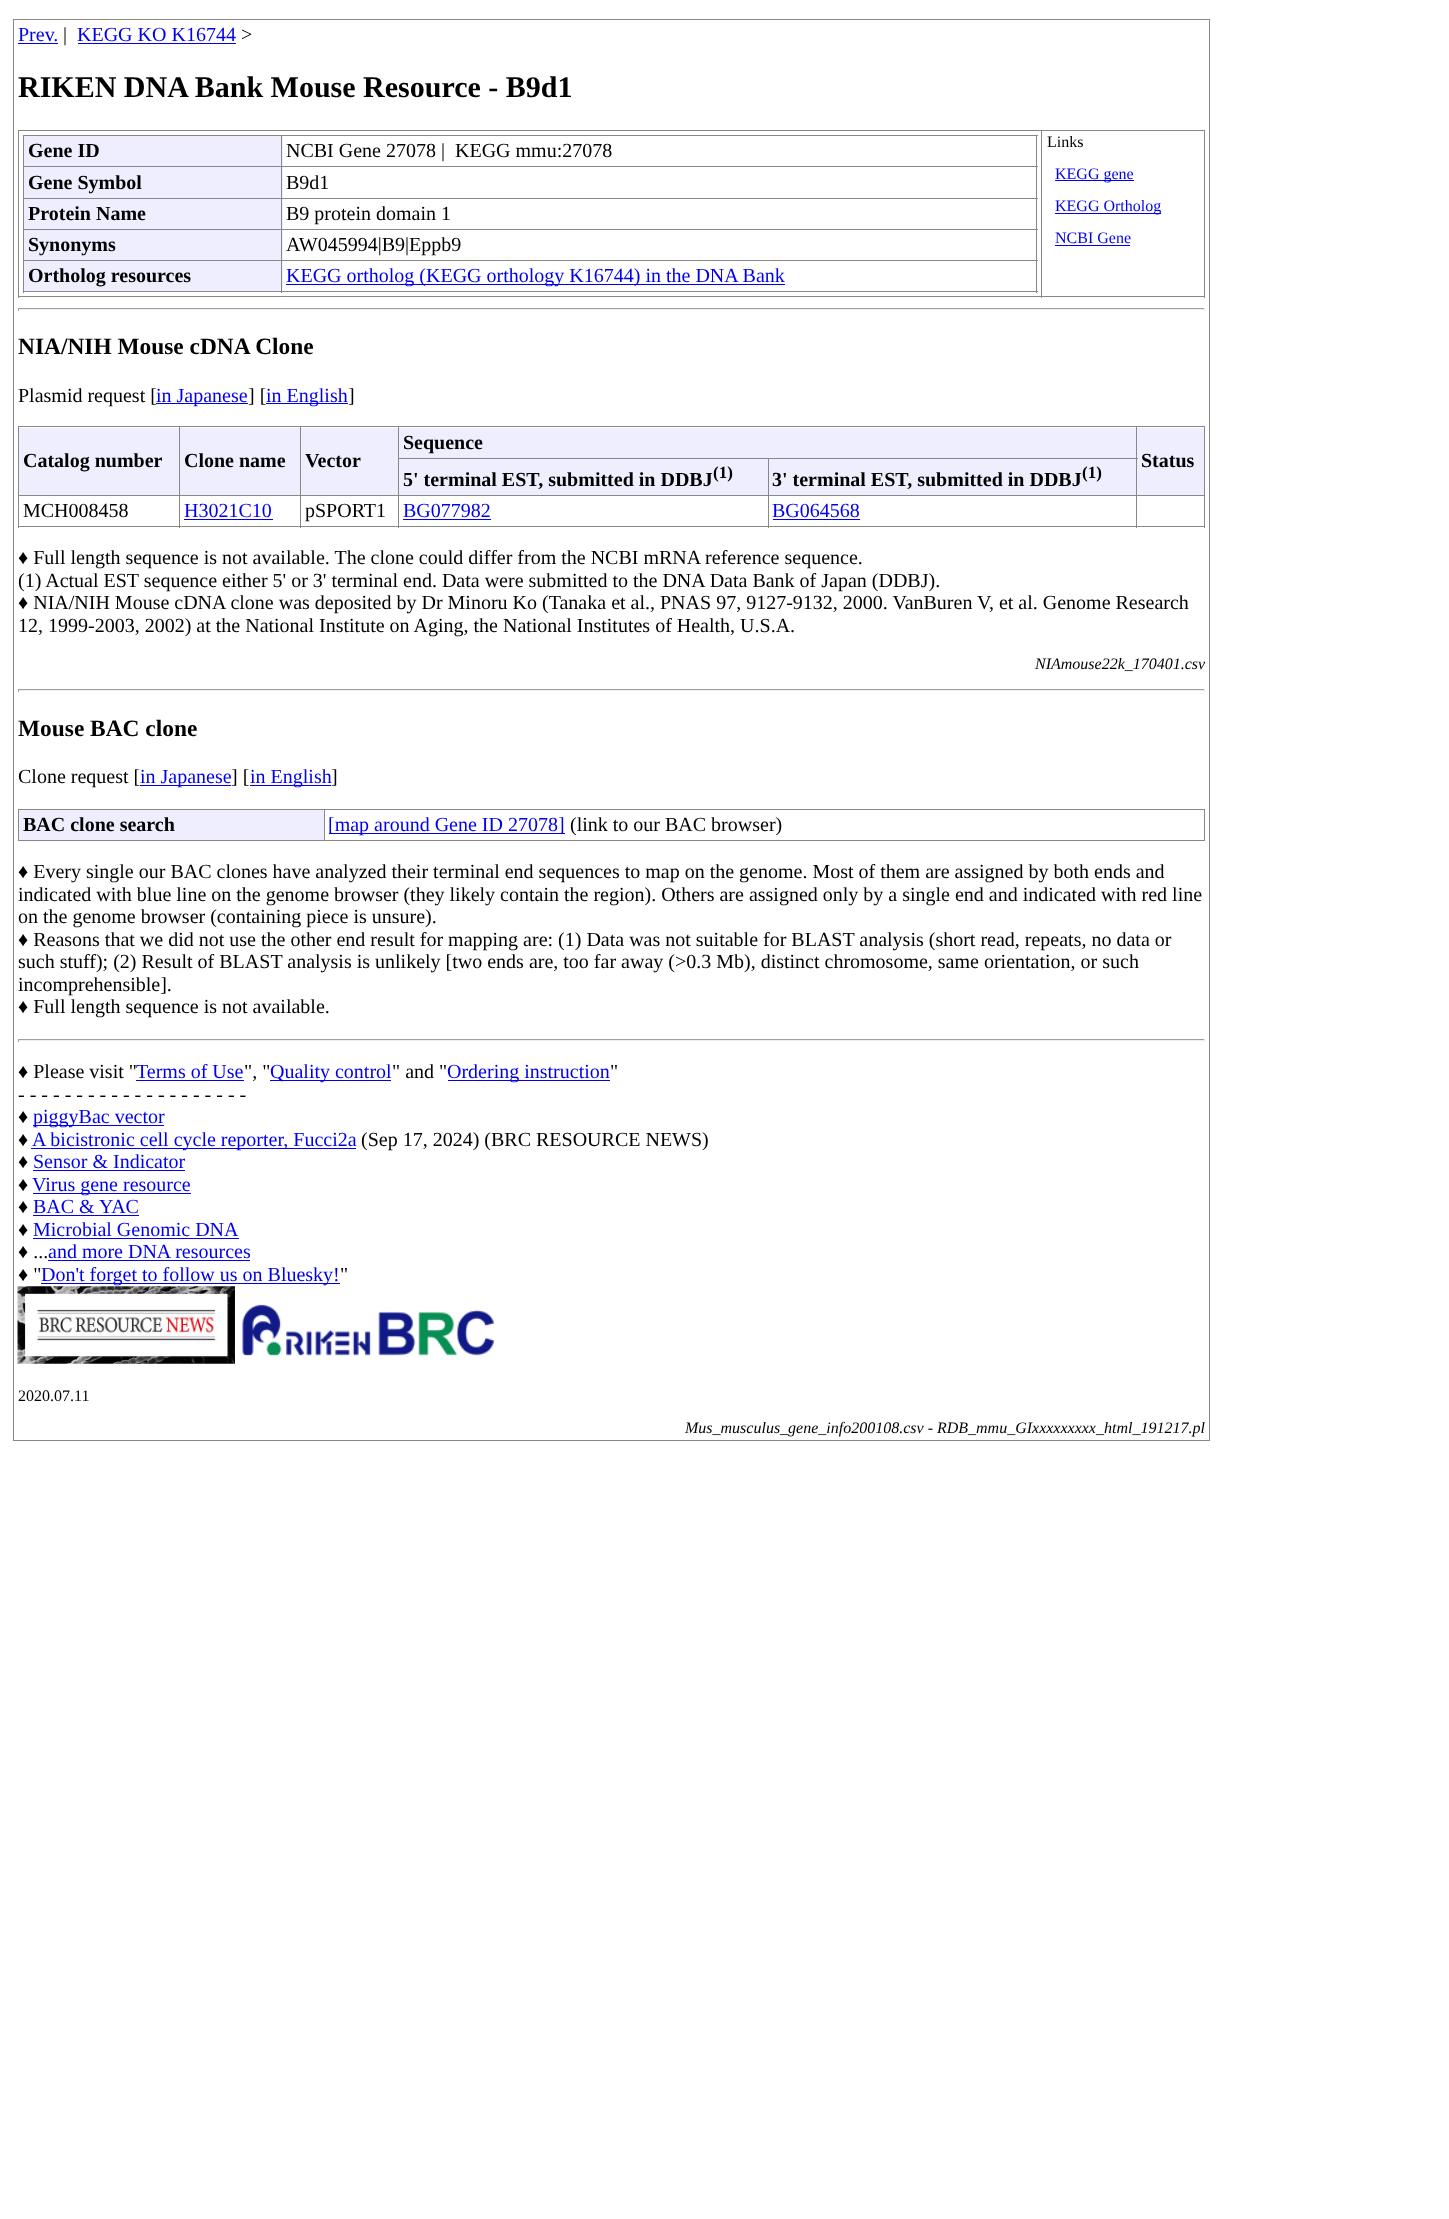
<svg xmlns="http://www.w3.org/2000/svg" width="1449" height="2219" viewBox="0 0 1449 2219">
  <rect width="100%" height="100%" fill="#fff"/>
  <path d="M13 19h1197v1H13z" fill="#888"/>
  <path d="M1209 19h1v1422H1209z" fill="#888"/>
  <path d="M13 1440h1197v1H13z" fill="#888"/>
  <path d="M13 19h1v1422H13z" fill="#888"/>
  <path d="M18 43h40v1H18z" fill="#00e"/>
  <path d="M78 43h158v1H78z" fill="#00e"/>
  <path d="M18 130h1187v1H18z" fill="#888"/>
  <path d="M1204 130h1v168H1204z" fill="#888"/>
  <path d="M18 296h1187v1H18z" fill="#888"/>
  <path d="M18 130h1v168H18z" fill="#888"/>
  <path d="M23 135h1015v1H23z" fill="#888"/>
  <path d="M1036 135h1v158H1036z" fill="#888"/>
  <path d="M23 291h1015v1H23z" fill="#888"/>
  <path d="M23 135h1v158H23z" fill="#888"/>
  <path d="M24 136h259v30H24z" fill="#eef"/>
  <path d="M24 167h259v31H24z" fill="#eef"/>
  <path d="M281 166h757v1H281z" fill="#888"/>
  <path d="M281 198h757v1H281z" fill="#888"/>
  <path d="M24 199h259v30H24z" fill="#eef"/>
  <path d="M281 229h757v1H281z" fill="#888"/>
  <path d="M24 230h259v30H24z" fill="#eef"/>
  <path d="M281 260h757v1H281z" fill="#888"/>
  <path d="M24 261h259v30H24z" fill="#eef"/>
  <path d="M281 260h1v33H281z" fill="#888"/>
  <path d="M23 260h260v1H23z" fill="#888"/>
  <path d="M281 229h1v32H281z" fill="#888"/>
  <path d="M23 229h260v1H23z" fill="#888"/>
  <path d="M281 198h1v32H281z" fill="#888"/>
  <path d="M23 198h260v1H23z" fill="#888"/>
  <path d="M281 166h1v33H281z" fill="#888"/>
  <path d="M23 166h260v1H23z" fill="#888"/>
  <path d="M281 135h1v33H281z" fill="#888"/>
  <path d="M286 284h499v1H286z" fill="#00e"/>
  <path d="M1041 130h1v168H1041z" fill="#888"/>
  <path d="M1055 180h79v1H1055z" fill="#00e"/>
  <path d="M1055 213h106v1H1055z" fill="#00e"/>
  <path d="M1055 245h75v1H1055z" fill="#00e"/>
  <path d="M18 308h1187v1H18z" fill="#9f9f9f"/>
  <path d="M1204 308h1v3H1204z" fill="#eee"/>
  <path d="M18 309h1187v1H18z" fill="#eee"/>
  <path d="M18 308h1v3H18z" fill="#9f9f9f"/>
  <path d="M156 403h92v1H156z" fill="#00e"/>
  <path d="M266 403h82v1H266z" fill="#00e"/>
  <path d="M18 426h1187v1H18z" fill="#888"/>
  <path d="M1204 426h1v102H1204z" fill="#888"/>
  <path d="M18 526h1187v1H18z" fill="#888"/>
  <path d="M18 426h1v102H18z" fill="#888"/>
  <path d="M399 428h737v30H399z" fill="#eef"/>
  <path d="M19 428h160v67H19z" fill="#eef"/>
  <path d="M180 428h120v67H180z" fill="#eef"/>
  <path d="M1136 495h69v1H1136z" fill="#888"/>
  <path d="M1136 495h1v33H1136z" fill="#888"/>
  <path d="M768 495h370v1H768z" fill="#888"/>
  <path d="M768 495h1v33H768z" fill="#888"/>
  <path d="M398 495h371v1H398z" fill="#888"/>
  <path d="M398 495h1v33H398z" fill="#888"/>
  <path d="M300 495h99v1H300z" fill="#888"/>
  <path d="M300 495h1v33H300z" fill="#888"/>
  <path d="M179 495h122v1H179z" fill="#888"/>
  <path d="M179 495h1v33H179z" fill="#888"/>
  <path d="M18 495h162v1H18z" fill="#888"/>
  <path d="M179 426h1v70H179z" fill="#888"/>
  <path d="M301 428h97v67H301z" fill="#eef"/>
  <path d="M300 426h1v70H300z" fill="#888"/>
  <path d="M1137 428h67v67H1137z" fill="#eef"/>
  <path d="M768 458h370v1H768z" fill="#888"/>
  <path d="M1136 426h1v70H1136z" fill="#888"/>
  <path d="M399 459h369v36H399z" fill="#eef"/>
  <path d="M768 458h1v38H768z" fill="#888"/>
  <path d="M398 458h371v1H398z" fill="#888"/>
  <path d="M398 426h1v70H398z" fill="#888"/>
  <path d="M769 459h367v36H769z" fill="#eef"/>
  <path d="M184 519h89v1H184z" fill="#00e"/>
  <path d="M403 519h88v1H403z" fill="#00e"/>
  <path d="M773 519h87v1H773z" fill="#00e"/>
  <path d="M18 689h1187v1H18z" fill="#9f9f9f"/>
  <path d="M1204 689h1v3H1204z" fill="#eee"/>
  <path d="M18 690h1187v1H18z" fill="#eee"/>
  <path d="M18 689h1v3H18z" fill="#9f9f9f"/>
  <path d="M140 785h91v1H140z" fill="#00e"/>
  <path d="M250 785h81v1H250z" fill="#00e"/>
  <path d="M18 809h1187v1H18z" fill="#888"/>
  <path d="M1204 809h1v32H1204z" fill="#888"/>
  <path d="M18 840h1187v1H18z" fill="#888"/>
  <path d="M18 809h1v32H18z" fill="#888"/>
  <path d="M19 810h305v30H19z" fill="#eef"/>
  <path d="M324 809h1v32H324z" fill="#888"/>
  <path d="M329 833h236v1H329z" fill="#00e"/>
  <path d="M18 1039h1187v1H18z" fill="#9f9f9f"/>
  <path d="M1204 1039h1v3H1204z" fill="#eee"/>
  <path d="M18 1040h1187v1H18z" fill="#eee"/>
  <path d="M18 1039h1v3H18z" fill="#9f9f9f"/>
  <path d="M136 1080h108v1H136z" fill="#00e"/>
  <path d="M270 1080h121v1H270z" fill="#00e"/>
  <path d="M448 1080h162v1H448z" fill="#00e"/>
  <path d="M33 1125h131v1H33z" fill="#00e"/>
  <path d="M31 1148h325v1H31z" fill="#00e"/>
  <path d="M33 1170h152v1H33z" fill="#00e"/>
  <path d="M33 1193h158v1H33z" fill="#00e"/>
  <path d="M33 1215h106v1H33z" fill="#00e"/>
  <path d="M33 1238h206v1H33z" fill="#00e"/>
  <path d="M48 1260h202v1H48z" fill="#00e"/>
  <path d="M41 1283h299v1H41z" fill="#00e"/>
  <image x="17" y="1286" width="218" height="78" href="img/1.png"/>
  <image x="242" y="1304" width="252" height="52" href="img/2.png"/>
  <text x="18" y="41" font-family="Liberation Serif" font-size="20" fill="#00e">Prev.</text>
  <text x="63" y="41" font-family="Liberation Serif" font-size="20" fill="#000">|</text>
  <text x="77" y="41" font-family="Liberation Serif" font-size="20" fill="#00e">KEGG KO K16744</text>
  <text x="241" y="41" font-family="Liberation Serif" font-size="20" fill="#000">&gt;</text>
  <text x="18" y="97" font-family="Liberation Serif" font-size="30" font-weight="bold" fill="#000">RIKEN DNA Bank Mouse Resource - B9d1</text>
  <text x="28" y="157" font-family="Liberation Serif" font-size="20" font-weight="bold" fill="#000">Gene ID</text>
  <text x="286" y="157" font-family="Liberation Serif" font-size="20" fill="#000" xml:space="preserve">NCBI Gene 27078 |  KEGG mmu:27078</text>
  <text x="28" y="189" font-family="Liberation Serif" font-size="20" font-weight="bold" fill="#000">Gene Symbol</text>
  <text x="286" y="189" font-family="Liberation Serif" font-size="20" fill="#000">B9d1</text>
  <text x="28" y="220" font-family="Liberation Serif" font-size="20" font-weight="bold" fill="#000">Protein Name</text>
  <text x="286" y="220" font-family="Liberation Serif" font-size="20" fill="#000">B9 protein domain 1</text>
  <text x="28" y="251" font-family="Liberation Serif" font-size="20" font-weight="bold" fill="#000">Synonyms</text>
  <text x="286" y="251" font-family="Liberation Serif" font-size="20" fill="#000">AW045994|B9|Eppb9</text>
  <text x="28" y="282" font-family="Liberation Serif" font-size="20" font-weight="bold" fill="#000">Ortholog resources</text>
  <text x="286" y="282" font-family="Liberation Serif" font-size="20" fill="#00e">KEGG ortholog (KEGG orthology K16744) in the DNA Bank</text>
  <text x="1047" y="147" font-family="Liberation Serif" font-size="16" fill="#000">Links</text>
  <g font-family="Liberation Serif" font-size="16" fill="#00e">
    <text x="1055" y="179">KEGG gene</text>
    <text x="1055" y="211">KEGG Ortholog</text>
    <text x="1055" y="243">NCBI Gene</text>
  </g>
  <text x="18" y="354" font-family="Liberation Serif" font-size="23.4" font-weight="bold" fill="#000">NIA/NIH Mouse cDNA Clone</text>
  <text x="18" y="402" font-family="Liberation Serif" font-size="20" fill="#000">Plasmid request [</text>
  <text x="156" y="402" font-family="Liberation Serif" font-size="20" fill="#00e">in Japanese</text>
  <text x="248" y="402" font-family="Liberation Serif" font-size="20" fill="#000">] [</text>
  <text x="266" y="402" font-family="Liberation Serif" font-size="20" fill="#00e">in English</text>
  <text x="348" y="402" font-family="Liberation Serif" font-size="20" fill="#000">]</text>
  <g font-family="Liberation Serif" font-size="20" font-weight="bold" fill="#000">
    <text x="403" y="449">Sequence</text>
    <text x="23" y="467">Catalog number</text>
    <text x="184" y="467">Clone name</text>
    <text x="305" y="467">Vector</text>
    <text x="1141" y="467">Status</text>
    <text x="403" y="486">5' terminal EST, submitted in DDBJ</text>
  </g>
  <text x="713" y="478" font-family="Liberation Serif" font-size="17" font-weight="bold" fill="#000">(1)</text>
  <text x="772" y="486" font-family="Liberation Serif" font-size="20" font-weight="bold" fill="#000">3' terminal EST, submitted in DDBJ</text>
  <text x="1082" y="478" font-family="Liberation Serif" font-size="17" font-weight="bold" fill="#000">(1)</text>
  <text x="23" y="517" font-family="Liberation Serif" font-size="20" fill="#000">MCH008458</text>
  <text x="184" y="517" font-family="Liberation Serif" font-size="20" fill="#00e">H3021C10</text>
  <text x="305" y="517" font-family="Liberation Serif" font-size="20" fill="#000">pSPORT1</text>
  <g font-family="Liberation Serif" font-size="20" fill="#00e">
    <text x="403" y="517">BG077982</text>
    <text x="772" y="517">BG064568</text>
  </g>
  <g font-family="Liberation Serif" font-size="20" fill="#000">
    <text x="18" y="564">♦ Full length sequence is not available. The clone could differ from the NCBI mRNA reference sequence.</text>
    <text x="18" y="587">(1) Actual EST sequence either 5' or 3' terminal end. Data were submitted to the DNA Data Bank of Japan (DDBJ).</text>
    <text x="18" y="609">♦ NIA/NIH Mouse cDNA clone was deposited by Dr Minoru Ko (Tanaka et al., PNAS 97, 9127-9132, 2000. VanBuren V, et al. Genome Research</text>
    <text x="18" y="632">12, 1999-2003, 2002) at the National Institute on Aging, the National Institutes of Health, U.S.A.</text>
  </g>
  <text x="1035" y="669" font-family="Liberation Serif" font-size="16" font-style="italic" fill="#000">NIAmouse22k_170401.csv</text>
  <text x="18" y="736" font-family="Liberation Serif" font-size="23.4" font-weight="bold" fill="#000">Mouse BAC clone</text>
  <text x="18" y="783" font-family="Liberation Serif" font-size="20" fill="#000">Clone request [</text>
  <text x="140" y="783" font-family="Liberation Serif" font-size="20" fill="#00e">in Japanese</text>
  <text x="231" y="783" font-family="Liberation Serif" font-size="20" fill="#000">] [</text>
  <text x="250" y="783" font-family="Liberation Serif" font-size="20" fill="#00e">in English</text>
  <text x="331" y="783" font-family="Liberation Serif" font-size="20" fill="#000">]</text>
  <text x="23" y="831" font-family="Liberation Serif" font-size="20" font-weight="bold" fill="#000">BAC clone search</text>
  <text x="328" y="831" font-family="Liberation Serif" font-size="20" fill="#00e">[map around Gene ID 27078]</text>
  <g font-family="Liberation Serif" font-size="20" fill="#000">
    <text x="570" y="831">(link to our BAC browser)</text>
    <text x="18" y="878">♦ Every single our BAC clones have analyzed their terminal end sequences to map on the genome. Most of them are assigned by both ends and</text>
    <text x="18" y="901">indicated with blue line on the genome browser (they likely contain the region). Others are assigned only by a single end and indicated with red line</text>
    <text x="18" y="923">on the genome browser (containing piece is unsure).</text>
    <text x="18" y="946">♦ Reasons that we did not use the other end result for mapping are: (1) Data was not suitable for BLAST analysis (short read, repeats, no data or</text>
    <text x="18" y="968">such stuff); (2) Result of BLAST analysis is unlikely [two ends are, too far away (&gt;0.3 Mb), distinct chromosome, same orientation, or such</text>
    <text x="18" y="991">incomprehensible].</text>
    <text x="18" y="1013">♦ Full length sequence is not available.</text>
    <text x="18" y="1078">♦ Please visit "</text>
  </g>
  <text x="136" y="1078" font-family="Liberation Serif" font-size="20" fill="#00e">Terms of Use</text>
  <text x="244" y="1078" font-family="Liberation Serif" font-size="20" fill="#000">", "</text>
  <text x="270" y="1078" font-family="Liberation Serif" font-size="20" fill="#00e">Quality control</text>
  <text x="392" y="1078" font-family="Liberation Serif" font-size="20" fill="#000">" and "</text>
  <text x="447" y="1078" font-family="Liberation Serif" font-size="20" fill="#00e">Ordering instruction</text>
  <g font-family="Liberation Serif" font-size="20" fill="#000">
    <text x="610" y="1078">"</text>
    <text x="18" y="1101">- - - - - - - - - - - - - - - - - - - -</text>
    <text x="18" y="1123">♦</text>
  </g>
  <text x="33" y="1123" font-family="Liberation Serif" font-size="20" fill="#00e">piggyBac vector</text>
  <text x="18" y="1146" font-family="Liberation Serif" font-size="20" fill="#000">♦</text>
  <text x="32" y="1146" font-family="Liberation Serif" font-size="20" fill="#00e">A bicistronic cell cycle reporter, Fucci2a</text>
  <g font-family="Liberation Serif" font-size="20" fill="#000">
    <text x="361" y="1146">(Sep 17, 2024) (BRC RESOURCE NEWS)</text>
    <text x="18" y="1168">♦</text>
  </g>
  <text x="33" y="1168" font-family="Liberation Serif" font-size="20" fill="#00e">Sensor &amp; Indicator</text>
  <text x="18" y="1191" font-family="Liberation Serif" font-size="20" fill="#000">♦</text>
  <text x="32" y="1191" font-family="Liberation Serif" font-size="20" fill="#00e">Virus gene resource</text>
  <text x="18" y="1213" font-family="Liberation Serif" font-size="20" fill="#000">♦</text>
  <text x="33" y="1213" font-family="Liberation Serif" font-size="20" fill="#00e">BAC &amp; YAC</text>
  <text x="18" y="1236" font-family="Liberation Serif" font-size="20" fill="#000">♦</text>
  <text x="33" y="1236" font-family="Liberation Serif" font-size="20" fill="#00e">Microbial Genomic DNA</text>
  <text x="18" y="1258" font-family="Liberation Serif" font-size="20" fill="#000">♦ ...</text>
  <text x="48" y="1258" font-family="Liberation Serif" font-size="20" fill="#00e">and more DNA resources</text>
  <text x="18" y="1281" font-family="Liberation Serif" font-size="20" fill="#000">♦ "</text>
  <text x="41" y="1281" font-family="Liberation Serif" font-size="20" fill="#00e">Don't forget to follow us on Bluesky!</text>
  <text x="340" y="1281" font-family="Liberation Serif" font-size="20" fill="#000">"</text>
  <text x="18" y="1401" font-family="Liberation Serif" font-size="16" fill="#000">2020.07.11</text>
  <text x="685" y="1433" font-family="Liberation Serif" font-size="16" font-style="italic" fill="#000">Mus_musculus_gene_info200108.csv - RDB_mmu_GIxxxxxxxxx_html_191217.pl</text>
</svg>
